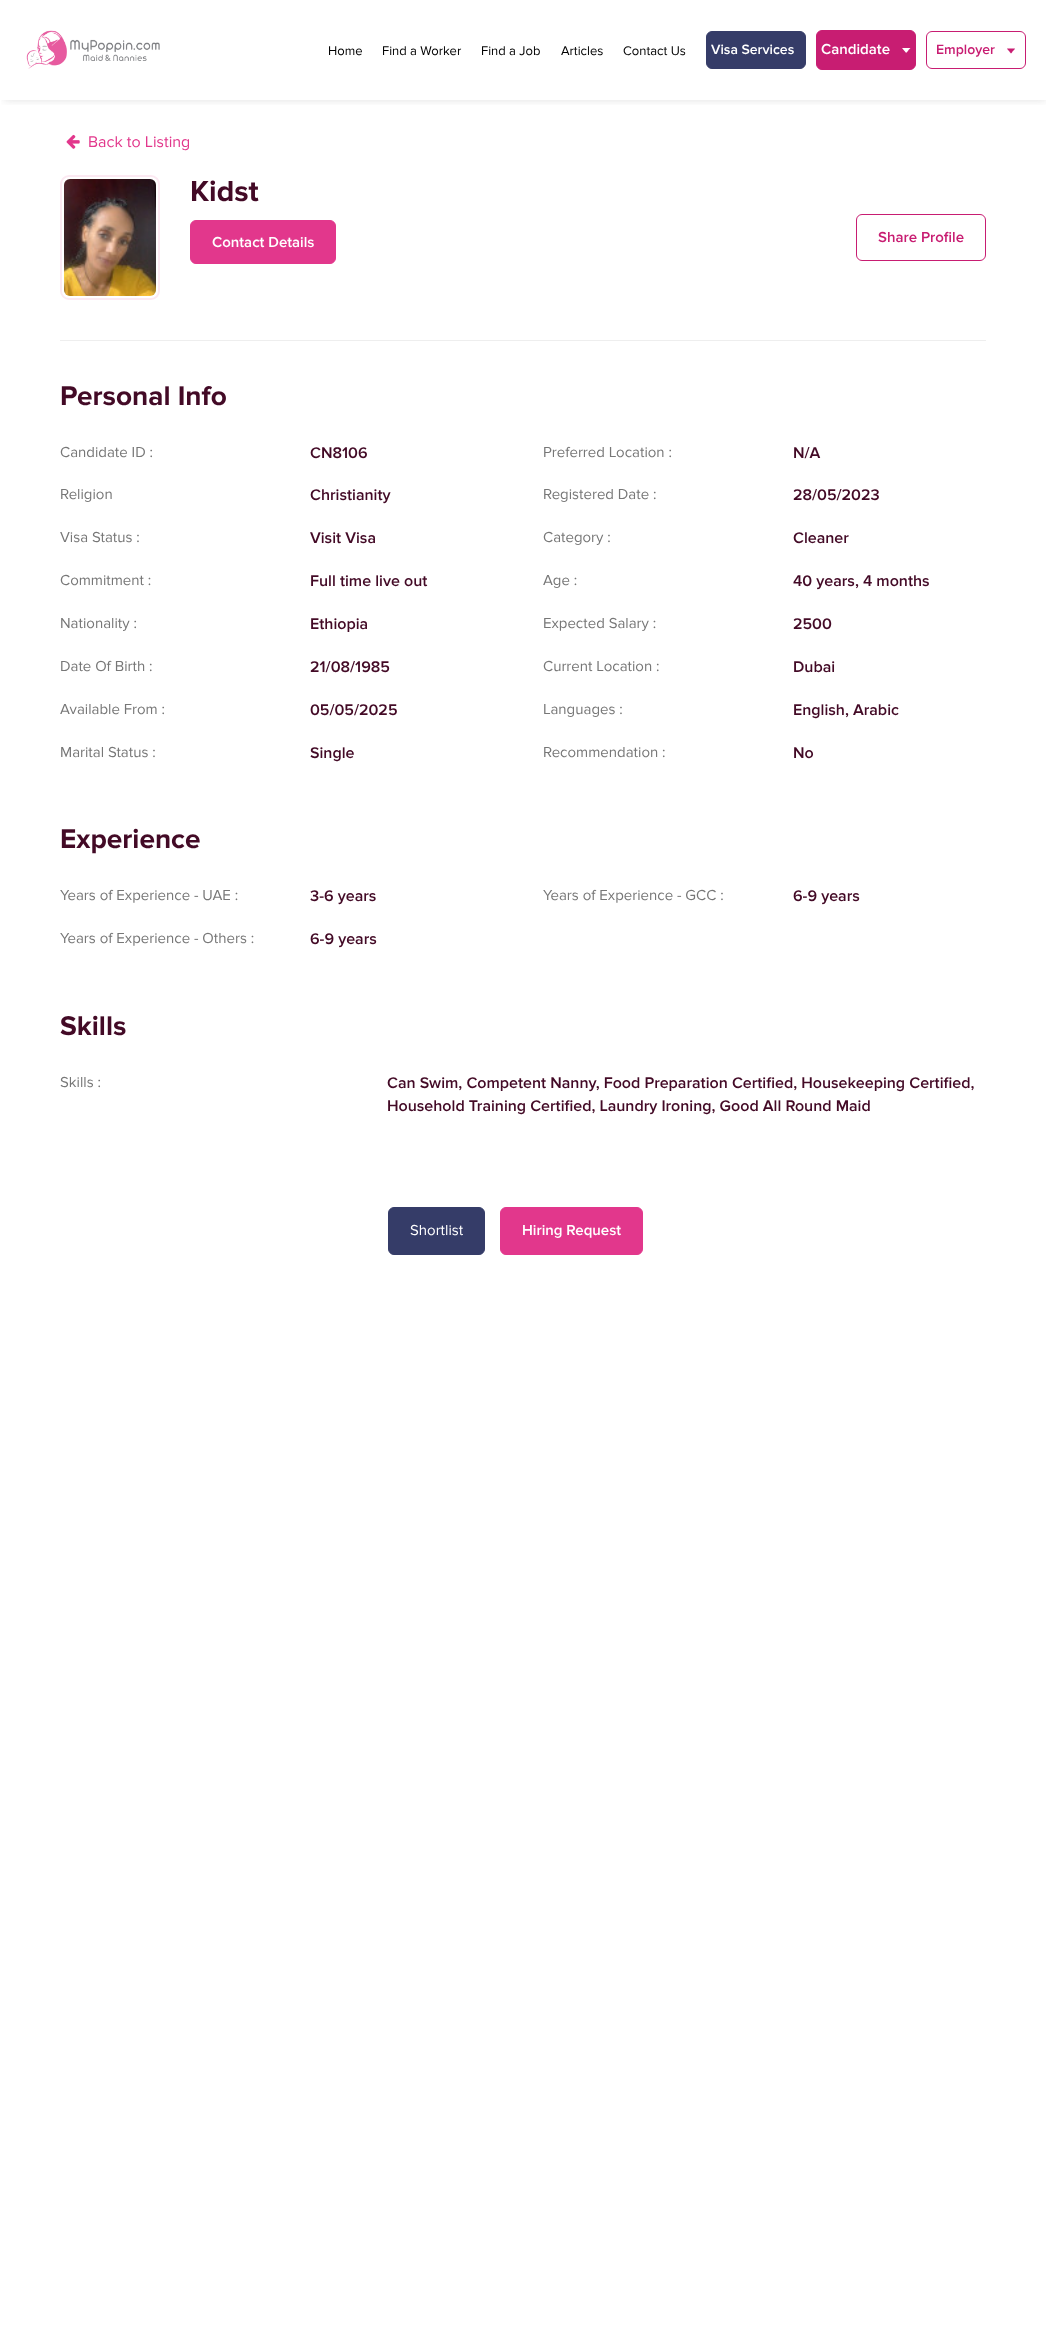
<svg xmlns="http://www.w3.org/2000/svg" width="1046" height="2336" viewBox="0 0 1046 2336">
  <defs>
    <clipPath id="clip1"><path d="M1 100h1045v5H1z"/></clipPath>
  </defs>
  <rect width="100%" height="100%" fill="#fff"/>
  <g clip-path="url(#clip1)">
    <path d="M4 4h1042v96H4z" fill="#63636333" filter="blur(4px)"/>
  </g>
  <image x="26" y="30" width="134" height="39" href="img/1.png"/>
  <rect x="706.5" y="31.5" width="99" height="37" rx="5.5" fill="#353c68" stroke="#353c68"/>
  <rect x="816.5" y="30.5" width="99" height="39" rx="5.5" fill="#c81d72" stroke="#c81d72"/>
  <image x="902" y="48" width="9" height="5" href="img/2.png"/>
  <rect x="926.5" y="31.5" width="99" height="37" rx="5.5" fill="none" stroke="#c81d72"/>
  <image x="1007" y="48" width="8" height="6" href="img/3.png"/>
  <image x="66" y="134" width="14" height="15" href="img/4.png"/>
  <path d="M60 340h926v1H60z" fill="#eee"/>
  <rect x="61" y="176" width="98" height="123" rx="8" fill="none" stroke="#fce9f2" stroke-width="2"/>
  <image x="64" y="179" width="92" height="117" href="img/5.png"/>
  <rect x="190.5" y="220.5" width="145" height="43" rx="5.5" fill="#e2378c" stroke="#e2378c"/>
  <rect x="856.5" y="214.5" width="129" height="46" rx="5.5" fill="none" stroke="#c81d72"/>
  <rect x="388.5" y="1207.5" width="96" height="47" rx="5.5" fill="#353c68" stroke="#353c68"/>
  <rect x="500.5" y="1207.5" width="142" height="47" rx="5.5" fill="#e2378c" stroke="#e2378c"/>
  <g font-family="Proxima Nova" font-size="13" fill="#000">
    <text x="328" y="55">Home</text>
    <text x="382" y="55">Find a Worker</text>
    <text x="481" y="55">Find a Job</text>
    <text x="561" y="55">Articles</text>
    <text x="623" y="55">Contact Us</text>
  </g>
  <text x="711" y="54" font-family="Proxima Nova" font-size="14" font-weight="600" fill="#fff">Visa Services</text>
  <text x="821" y="54" font-family="Proxima Nova" font-size="15" font-weight="600" fill="#fff">Candidate</text>
  <text x="936" y="54" font-family="Proxima Nova" font-size="14" font-weight="600" fill="#c81d72">Employer</text>
  <text x="88" y="147" font-family="Proxima Nova" font-size="16" fill="#e2378c">Back to Listing</text>
  <text x="190" y="201" font-family="Proxima Nova" font-size="30" font-weight="bold" fill="#430a26">Kidst</text>
  <text x="212" y="247" font-family="Proxima Nova" font-size="15" font-weight="600" fill="#fff">Contact Details</text>
  <text x="878" y="242" font-family="Proxima Nova" font-size="15" font-weight="600" fill="#c81d72">Share Profile</text>
  <text x="60" y="405" font-family="Proxima Nova" font-size="28" font-weight="bold" fill="#430a26">Personal Info</text>
  <text x="60" y="457" font-family="Proxima Nova" font-size="15" fill="#777">Candidate ID :</text>
  <text x="310" y="458" font-family="Proxima Nova" font-size="16" font-weight="600" fill="#430a26">CN8106</text>
  <text x="543" y="457" font-family="Proxima Nova" font-size="15" fill="#777">Preferred Location :</text>
  <text x="793" y="458" font-family="Proxima Nova" font-size="16" font-weight="600" fill="#430a26">N/A</text>
  <text x="60" y="499" font-family="Proxima Nova" font-size="15" fill="#777">Religion</text>
  <text x="310" y="500" font-family="Proxima Nova" font-size="16" font-weight="600" fill="#430a26">Christianity</text>
  <text x="543" y="499" font-family="Proxima Nova" font-size="15" fill="#777">Registered Date :</text>
  <text x="793" y="500" font-family="Proxima Nova" font-size="16" font-weight="600" fill="#430a26">28/05/2023</text>
  <text x="60" y="542" font-family="Proxima Nova" font-size="15" fill="#777">Visa Status :</text>
  <text x="310" y="543" font-family="Proxima Nova" font-size="16" font-weight="600" fill="#430a26">Visit Visa</text>
  <text x="543" y="542" font-family="Proxima Nova" font-size="15" fill="#777">Category :</text>
  <text x="793" y="543" font-family="Proxima Nova" font-size="16" font-weight="600" fill="#430a26">Cleaner</text>
  <text x="60" y="585" font-family="Proxima Nova" font-size="15" fill="#777">Commitment :</text>
  <text x="310" y="586" font-family="Proxima Nova" font-size="16" font-weight="600" fill="#430a26">Full time live out</text>
  <text x="543" y="585" font-family="Proxima Nova" font-size="15" fill="#777">Age :</text>
  <text x="793" y="586" font-family="Proxima Nova" font-size="16" font-weight="600" fill="#430a26">40 years, 4 months</text>
  <text x="60" y="628" font-family="Proxima Nova" font-size="15" fill="#777">Nationality :</text>
  <text x="310" y="629" font-family="Proxima Nova" font-size="16" font-weight="600" fill="#430a26">Ethiopia</text>
  <text x="543" y="628" font-family="Proxima Nova" font-size="15" fill="#777">Expected Salary :</text>
  <text x="793" y="629" font-family="Proxima Nova" font-size="16" font-weight="600" fill="#430a26">2500</text>
  <text x="60" y="671" font-family="Proxima Nova" font-size="15" fill="#777">Date Of Birth :</text>
  <text x="310" y="672" font-family="Proxima Nova" font-size="16" font-weight="600" fill="#430a26">21/08/1985</text>
  <text x="543" y="671" font-family="Proxima Nova" font-size="15" fill="#777">Current Location :</text>
  <text x="793" y="672" font-family="Proxima Nova" font-size="16" font-weight="600" fill="#430a26">Dubai</text>
  <text x="60" y="714" font-family="Proxima Nova" font-size="15" fill="#777">Available From :</text>
  <text x="310" y="715" font-family="Proxima Nova" font-size="16" font-weight="600" fill="#430a26">05/05/2025</text>
  <text x="543" y="714" font-family="Proxima Nova" font-size="15" fill="#777">Languages :</text>
  <text x="793" y="715" font-family="Proxima Nova" font-size="16" font-weight="600" fill="#430a26">English, Arabic</text>
  <text x="60" y="757" font-family="Proxima Nova" font-size="15" fill="#777">Marital Status :</text>
  <text x="310" y="758" font-family="Proxima Nova" font-size="16" font-weight="600" fill="#430a26">Single</text>
  <text x="543" y="757" font-family="Proxima Nova" font-size="15" fill="#777">Recommendation :</text>
  <text x="793" y="758" font-family="Proxima Nova" font-size="16" font-weight="600" fill="#430a26">No</text>
  <text x="60" y="848" font-family="Proxima Nova" font-size="28" font-weight="bold" fill="#430a26">Experience</text>
  <text x="60" y="900" font-family="Proxima Nova" font-size="15" fill="#777">Years of Experience - UAE :</text>
  <text x="310" y="901" font-family="Proxima Nova" font-size="16" font-weight="600" fill="#430a26">3-6 years</text>
  <text x="543" y="900" font-family="Proxima Nova" font-size="15" fill="#777">Years of Experience - GCC :</text>
  <text x="793" y="901" font-family="Proxima Nova" font-size="16" font-weight="600" fill="#430a26">6-9 years</text>
  <text x="60" y="943" font-family="Proxima Nova" font-size="15" fill="#777">Years of Experience - Others :</text>
  <text x="310" y="944" font-family="Proxima Nova" font-size="16" font-weight="600" fill="#430a26">6-9 years</text>
  <text x="60" y="1035" font-family="Proxima Nova" font-size="28" font-weight="bold" fill="#430a26">Skills</text>
  <text x="60" y="1087" font-family="Proxima Nova" font-size="15" fill="#777">Skills :</text>
  <g font-family="Proxima Nova" font-size="16" font-weight="600" fill="#430a26">
    <text x="387" y="1088">Can Swim, Competent Nanny, Food Preparation Certified, Housekeeping Certified,</text>
    <text x="387" y="1111">Household Training Certified, Laundry Ironing, Good All Round Maid</text>
  </g>
  <text x="410" y="1235" font-family="Proxima Nova" font-size="15" fill="#fff">Shortlist</text>
  <text x="522" y="1235" font-family="Proxima Nova" font-size="15" font-weight="600" fill="#fff">Hiring Request</text>
</svg>
